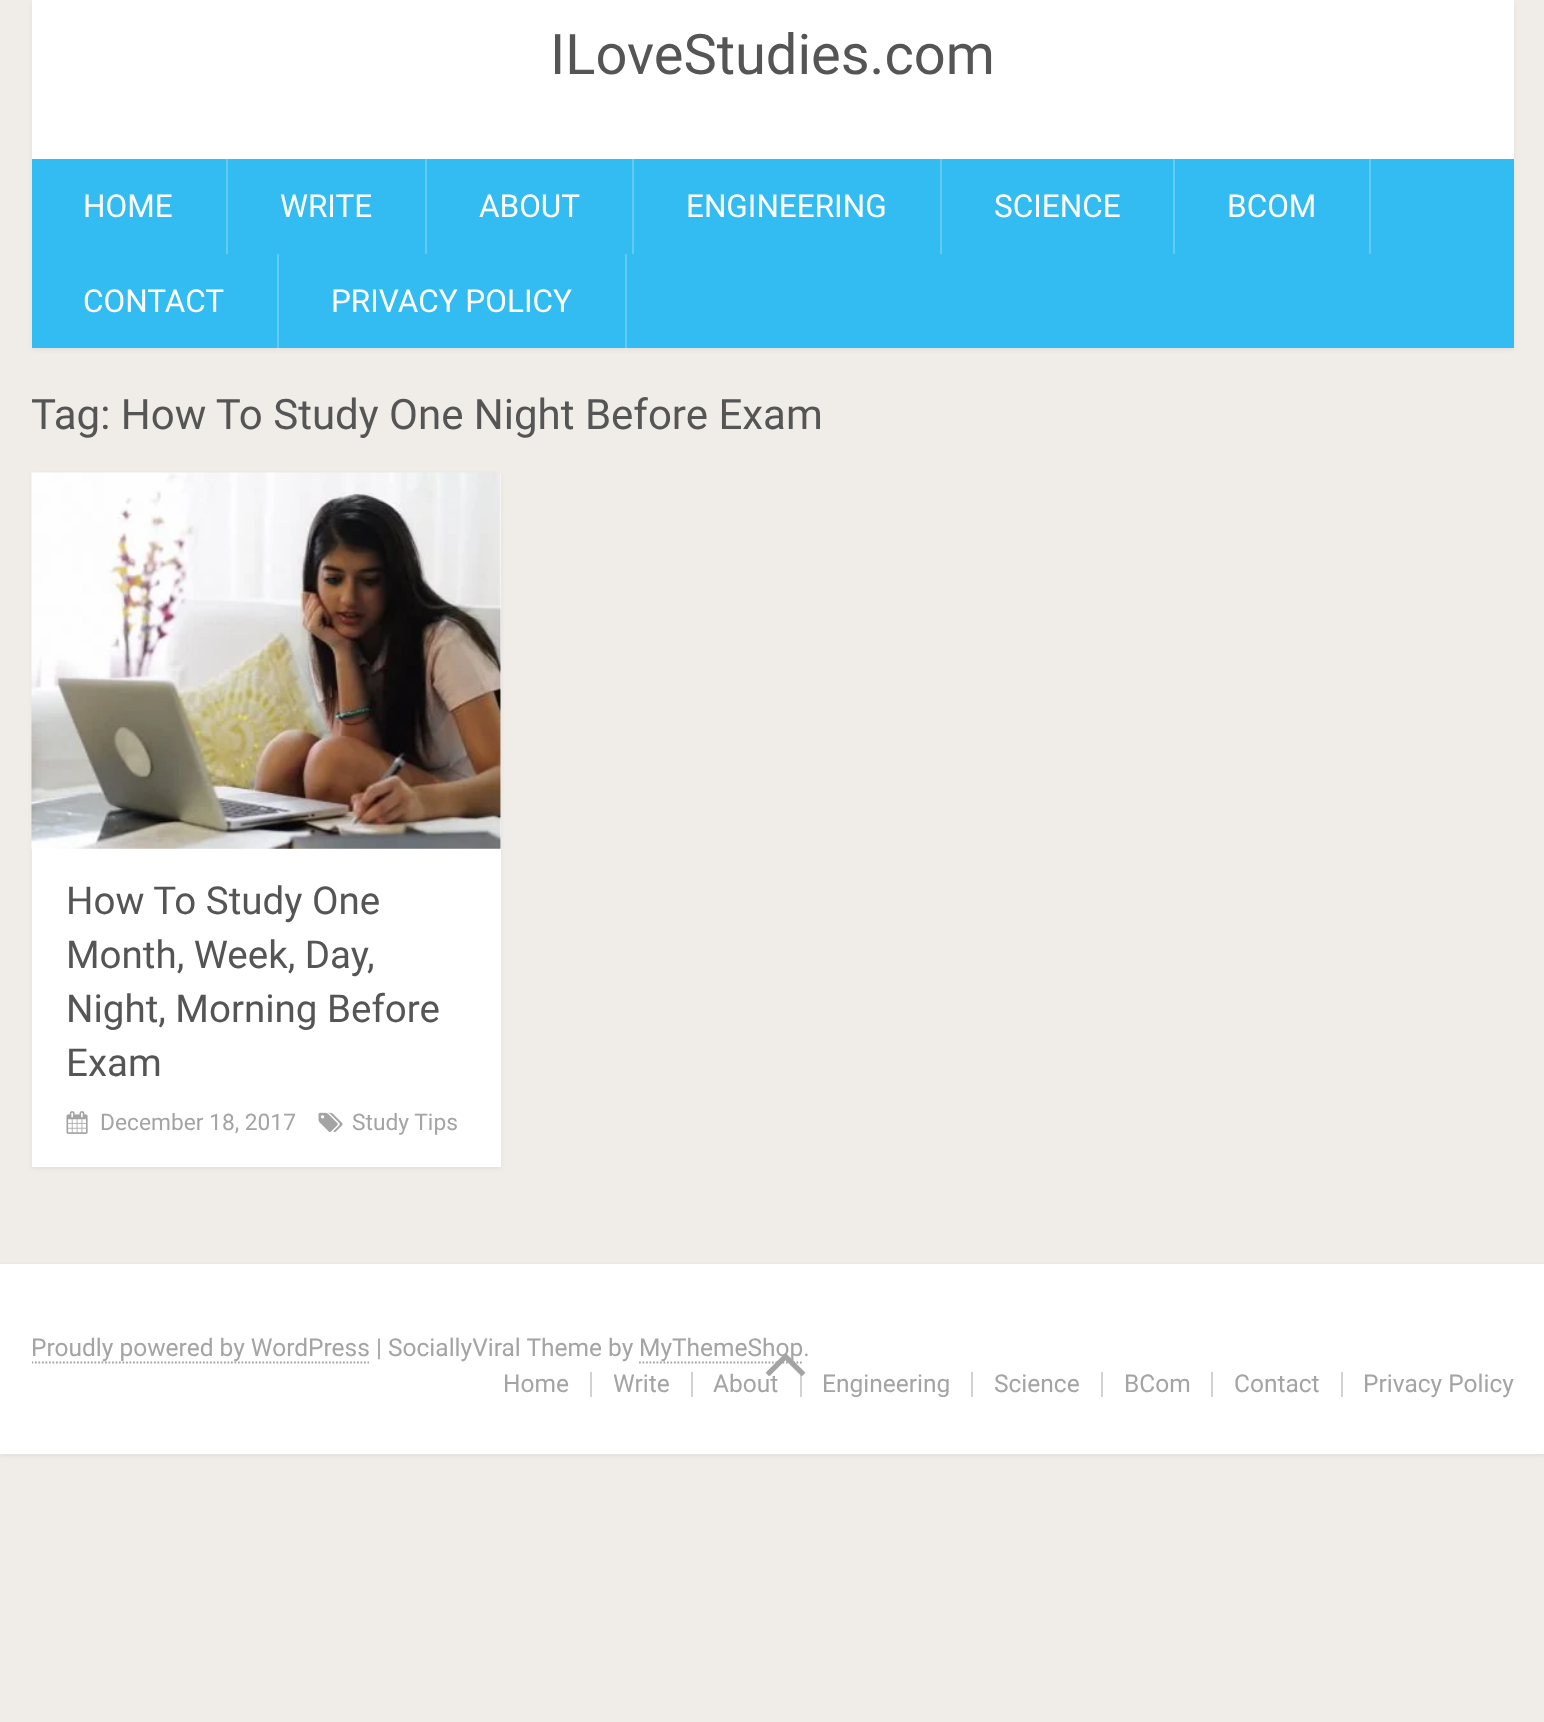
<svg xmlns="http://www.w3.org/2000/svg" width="1544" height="1722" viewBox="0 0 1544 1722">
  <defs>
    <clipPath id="clip1"><path d="M32 1264h1482v190H32z"/></clipPath>
  </defs>
  <rect width="100%" height="100%" fill="#f0ede9"/>
  <path d="M32 2h1482v348H32z" fill="#0000000d" filter="blur(2px)"/>
  <path d="M32 0h1482v159H32z" fill="#fff"/>
  <path d="M32 159h1482v189H32z" fill="#33bcf2"/>
  <path d="M226 159h2v95H226z" fill="#60cbf5"/>
  <path d="M425 159h2v95H425z" fill="#60cbf5"/>
  <path d="M632 159h2v95H632z" fill="#60cbf5"/>
  <path d="M940 159h2v95H940z" fill="#60cbf5"/>
  <path d="M1173 159h2v95H1173z" fill="#60cbf5"/>
  <path d="M1369 159h2v95H1369z" fill="#60cbf5"/>
  <path d="M277 254h2v94H277z" fill="#60cbf5"/>
  <path d="M625 254h2v94H625z" fill="#60cbf5"/>
  <path d="M32 474h469v695H32z" fill="#0000000d" filter="blur(2px)"/>
  <path d="M32 473h469v694H32z" fill="#fff"/>
  <image x="31" y="472" width="470" height="377" href="img/1.png"/>
  <image x="66" y="1111" width="22" height="23" href="img/2.png"/>
  <image x="318" y="1112" width="25" height="20" href="img/3.png"/>
  <path d="M0 1265h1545v191H0z" fill="#0000000d" filter="blur(2px)"/>
  <path d="M0 1264h1544v190H0z" fill="#fff"/>
  <g clip-path="url(#clip1)">
    <path d="M31.5 1362.5H369" fill="none" stroke="#a4a4a4" stroke-width="1.8" stroke-dasharray="1.75 1.75"/>
  </g>
  <path d="M639 1362.5H803" fill="none" stroke="#a4a4a4" stroke-width="1.8" stroke-dasharray="1.75 1.75"/>
  <path d="M590 1372h2v25H590z" fill="#d2d2d2"/>
  <path d="M691 1372h2v25H691z" fill="#d2d2d2"/>
  <path d="M800 1372h2v25H800z" fill="#d2d2d2"/>
  <path d="M971 1372h2v25H971z" fill="#d2d2d2"/>
  <path d="M1101 1372h2v25H1101z" fill="#d2d2d2"/>
  <path d="M1211 1372h2v25H1211z" fill="#d2d2d2"/>
  <path d="M1341 1372h2v25H1341z" fill="#d2d2d2"/>
  <text x="550" y="74" font-family="Roboto" font-size="56" fill="#555">ILoveStudies.com</text>
  <g font-family="Roboto" font-size="31.5" fill="#fff">
    <text x="83" y="217">HOME</text>
    <text x="280" y="217">WRITE</text>
    <text x="479" y="217">ABOUT</text>
    <text x="686" y="217">ENGINEERING</text>
    <text x="994" y="217">SCIENCE</text>
    <text x="1227" y="217">BCOM</text>
    <text x="83" y="312">CONTACT</text>
    <text x="331" y="312">PRIVACY POLICY</text>
  </g>
  <text x="31" y="429" font-family="Roboto" font-size="42" fill="#555">Tag: How To Study One Night Before Exam</text>
  <g font-family="Roboto" font-size="38.5" fill="#555">
    <text x="66" y="914">How To Study One</text>
    <text x="66" y="968">Month, Week, Day,</text>
    <text x="66" y="1022">Night, Morning Before</text>
    <text x="66" y="1076">Exam</text>
  </g>
  <g font-family="Roboto" font-size="22.75" fill="#a4a4a4">
    <text x="100" y="1130">December 18, 2017</text>
    <text x="352" y="1130">Study Tips</text>
  </g>
  <g font-family="Roboto" font-size="24.5" fill="#a4a4a4">
    <text x="31" y="1356">Proudly powered by WordPress | SociallyViral Theme by</text>
    <text x="639" y="1356">MyThemeShop.</text>
    <text x="503" y="1392">Home</text>
    <text x="613" y="1392">Write</text>
    <text x="713" y="1392">About</text>
  </g>
  <image x="766" y="1353" width="39" height="23" href="img/4.png"/>
  <g font-family="Roboto" font-size="24.5" fill="#a4a4a4">
    <text x="822" y="1392">Engineering</text>
    <text x="994" y="1392">Science</text>
    <text x="1124" y="1392">BCom</text>
    <text x="1234" y="1392">Contact</text>
    <text x="1363" y="1392">Privacy Policy</text>
  </g>
</svg>
